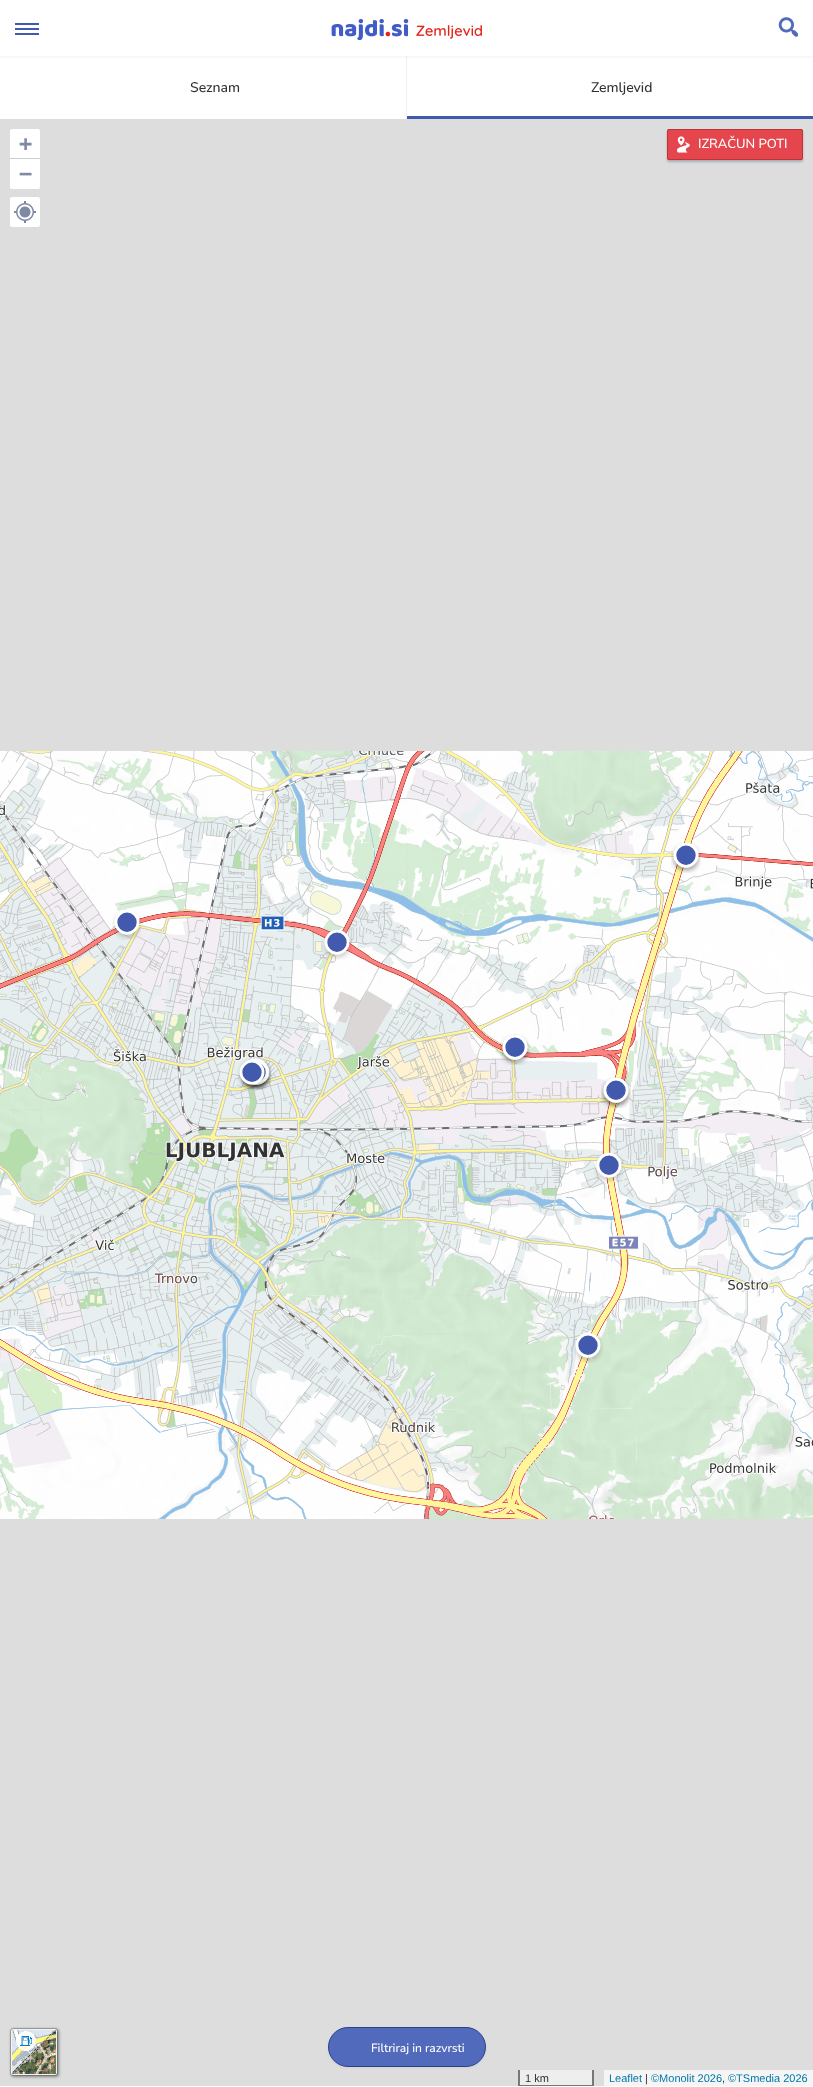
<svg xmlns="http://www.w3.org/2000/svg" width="813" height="2087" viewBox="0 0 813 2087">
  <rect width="100%" height="100%" fill="#fff"/>
  <path d="M406 56h1v63H406z" fill="#efefef"/>
  <path d="M0 1h813v56H0z" fill="#e4e4e480" filter="blur(1px)"/>
  <path d="M0 0h813v56H0z" fill="#fff"/>
  <path d="M15 23h24v2H15z" fill="#425aad"/>
  <path d="M15 28h24v2H15z" fill="#425aad"/>
  <path d="M15 33h24v2H15z" fill="#425aad"/>
  <image x="331" y="19" width="151" height="21" href="img/1.png"/>
  <image x="778" y="17" width="20" height="20" href="img/2.png"/>
  <path d="M407 116h406v3H407z" fill="#425aad"/>
  <path d="M0 119h813v1967H0z" fill="#ddd"/>
  <rect x="667" y="131" width="136" height="31" rx="2" fill="#68738373" filter="blur(1px)"/>
  <rect x="667" y="129" width="136" height="31" rx="2" fill="#e5454c"/>
  <image x="677" y="136" width="13" height="17" href="img/3.png"/>
  <rect x="667.5" y="129.5" width="135" height="30" rx="1.5" fill="none" stroke="#c03238"/>
  <path d="M12 129H38C39 129 40 130 40 131V159H10V131C10 130 11 129 12 129Z" fill="#fff"/>
  <path d="M10 158h30v1H10z" fill="#ccc"/>
  <path d="M10 159H40V187C40 188 39 189 38 189H12C11 189 10 188 10 187Z" fill="#fff"/>
  <rect x="10" y="197" width="30" height="30" rx="2" fill="#fff"/>
  <image x="14" y="201" width="22" height="22" href="img/4.png"/>
  <rect x="11" y="2029" width="48" height="48" rx="3" fill="#00000066" filter="blur(1.5px)"/>
  <rect x="11" y="2029" width="46" height="46" rx="2" fill="#f4f4f4"/>
  <rect x="10.5" y="2028.5" width="47" height="47" rx="2.5" fill="none" stroke="#00000033"/>
  <image x="12" y="2030" width="44" height="44" href="img/5.png"/>
  <path d="M520 2070h72v15H520z" fill="#eee"/>
  <path d="M592 2070h2v16H592z" fill="#777"/>
  <path d="M518 2085h76v1H518z" fill="#777"/>
  <path d="M518 2070h2v16H518z" fill="#777"/>
  <path d="M604 2070h209v16H604z" fill="#f5f5f5"/>
  <image x="0" y="751" width="189" height="256" href="img/6.png"/>
  <image x="189" y="751" width="256" height="256" href="img/7.png"/>
  <image x="445" y="751" width="256" height="256" href="img/8.png"/>
  <image x="701" y="751" width="112" height="256" href="img/9.png"/>
  <image x="0" y="1007" width="189" height="256" href="img/10.png"/>
  <image x="189" y="1007" width="256" height="256" href="img/11.png"/>
  <image x="445" y="1007" width="256" height="256" href="img/12.png"/>
  <image x="701" y="1007" width="112" height="256" href="img/13.png"/>
  <image x="0" y="1263" width="189" height="256" href="img/14.png"/>
  <image x="189" y="1263" width="256" height="256" href="img/15.png"/>
  <image x="445" y="1263" width="256" height="256" href="img/16.png"/>
  <image x="701" y="1263" width="112" height="256" href="img/17.png"/>
  <image x="671" y="842" width="30" height="31" href="img/18.png"/>
  <image x="671" y="842" width="30" height="31" href="img/19.png"/>
  <image x="112" y="910" width="30" height="30" href="img/20.png"/>
  <image x="322" y="929" width="30" height="31" href="img/21.png"/>
  <image x="500" y="1034" width="30" height="31" href="img/22.png"/>
  <image x="500" y="1034" width="30" height="31" href="img/23.png"/>
  <image x="241" y="1059" width="30" height="30" href="img/26.png"/>
  <image x="239" y="1058" width="30" height="31" href="img/24.png"/>
  <image x="240" y="1058" width="30" height="31" href="img/25.png"/>
  <image x="241" y="1059" width="30" height="30" href="img/27.png"/>
  <image x="241" y="1059" width="30" height="30" href="img/28.png"/>
  <image x="241" y="1062" width="30" height="27" href="img/31.png"/>
  <image x="242" y="1061" width="30" height="29" href="img/30.png"/>
  <image x="241" y="1062" width="30" height="28" href="img/32.png"/>
  <image x="237" y="1060" width="30" height="30" href="img/29.png"/>
  <image x="601" y="1077" width="30" height="31" href="img/33.png"/>
  <image x="601" y="1077" width="30" height="31" href="img/34.png"/>
  <image x="601" y="1077" width="30" height="31" href="img/35.png"/>
  <image x="594" y="1152" width="30" height="31" href="img/36.png"/>
  <image x="573" y="1333" width="30" height="30" href="img/37.png"/>
  <rect x="328" y="2028" width="158" height="40" rx="20" fill="#0000000d" filter="blur(1px)"/>
  <rect x="328.5" y="2027.5" width="157" height="39" rx="19.5" fill="#526abc" stroke="#2b418e"/>
  <g font-family="Nunito Sans" font-size="14" font-weight="500" fill="#30302f">
    <text x="190" y="92">Seznam</text>
    <text x="591" y="92">Zemljevid</text>
  </g>
  <text x="698" y="148" font-family="Nunito Sans" font-size="13" font-weight="500" fill="#fff">IZRAČUN POTI</text>
  <g font-family="DejaVu Sans Mono" font-size="22" font-weight="bold" fill="#7e89a4">
    <text x="19" y="151">+</text>
    <text x="19" y="181">−</text>
  </g>
  <text x="525" y="2082" font-family="Liberation Sans" font-size="11" fill="#30302f">1 km</text>
  <text x="609" y="2082" font-family="Liberation Sans" font-size="11" fill="#0078a8">Leaflet</text>
  <text x="645" y="2082" font-family="Liberation Sans" font-size="11" fill="#30302f">|</text>
  <text x="651" y="2082" font-family="Liberation Sans" font-size="11" fill="#0078a8">©Monolit 2026</text>
  <text x="722" y="2082" font-family="Liberation Sans" font-size="11" fill="#30302f">,</text>
  <text x="728" y="2082" font-family="Liberation Sans" font-size="11" fill="#0078a8">©TSmedia 2026</text>
  <text x="371" y="2052" font-family="Nunito Sans" font-size="12" font-weight="500" fill="#fff">Filtriraj in razvrsti</text>
</svg>
